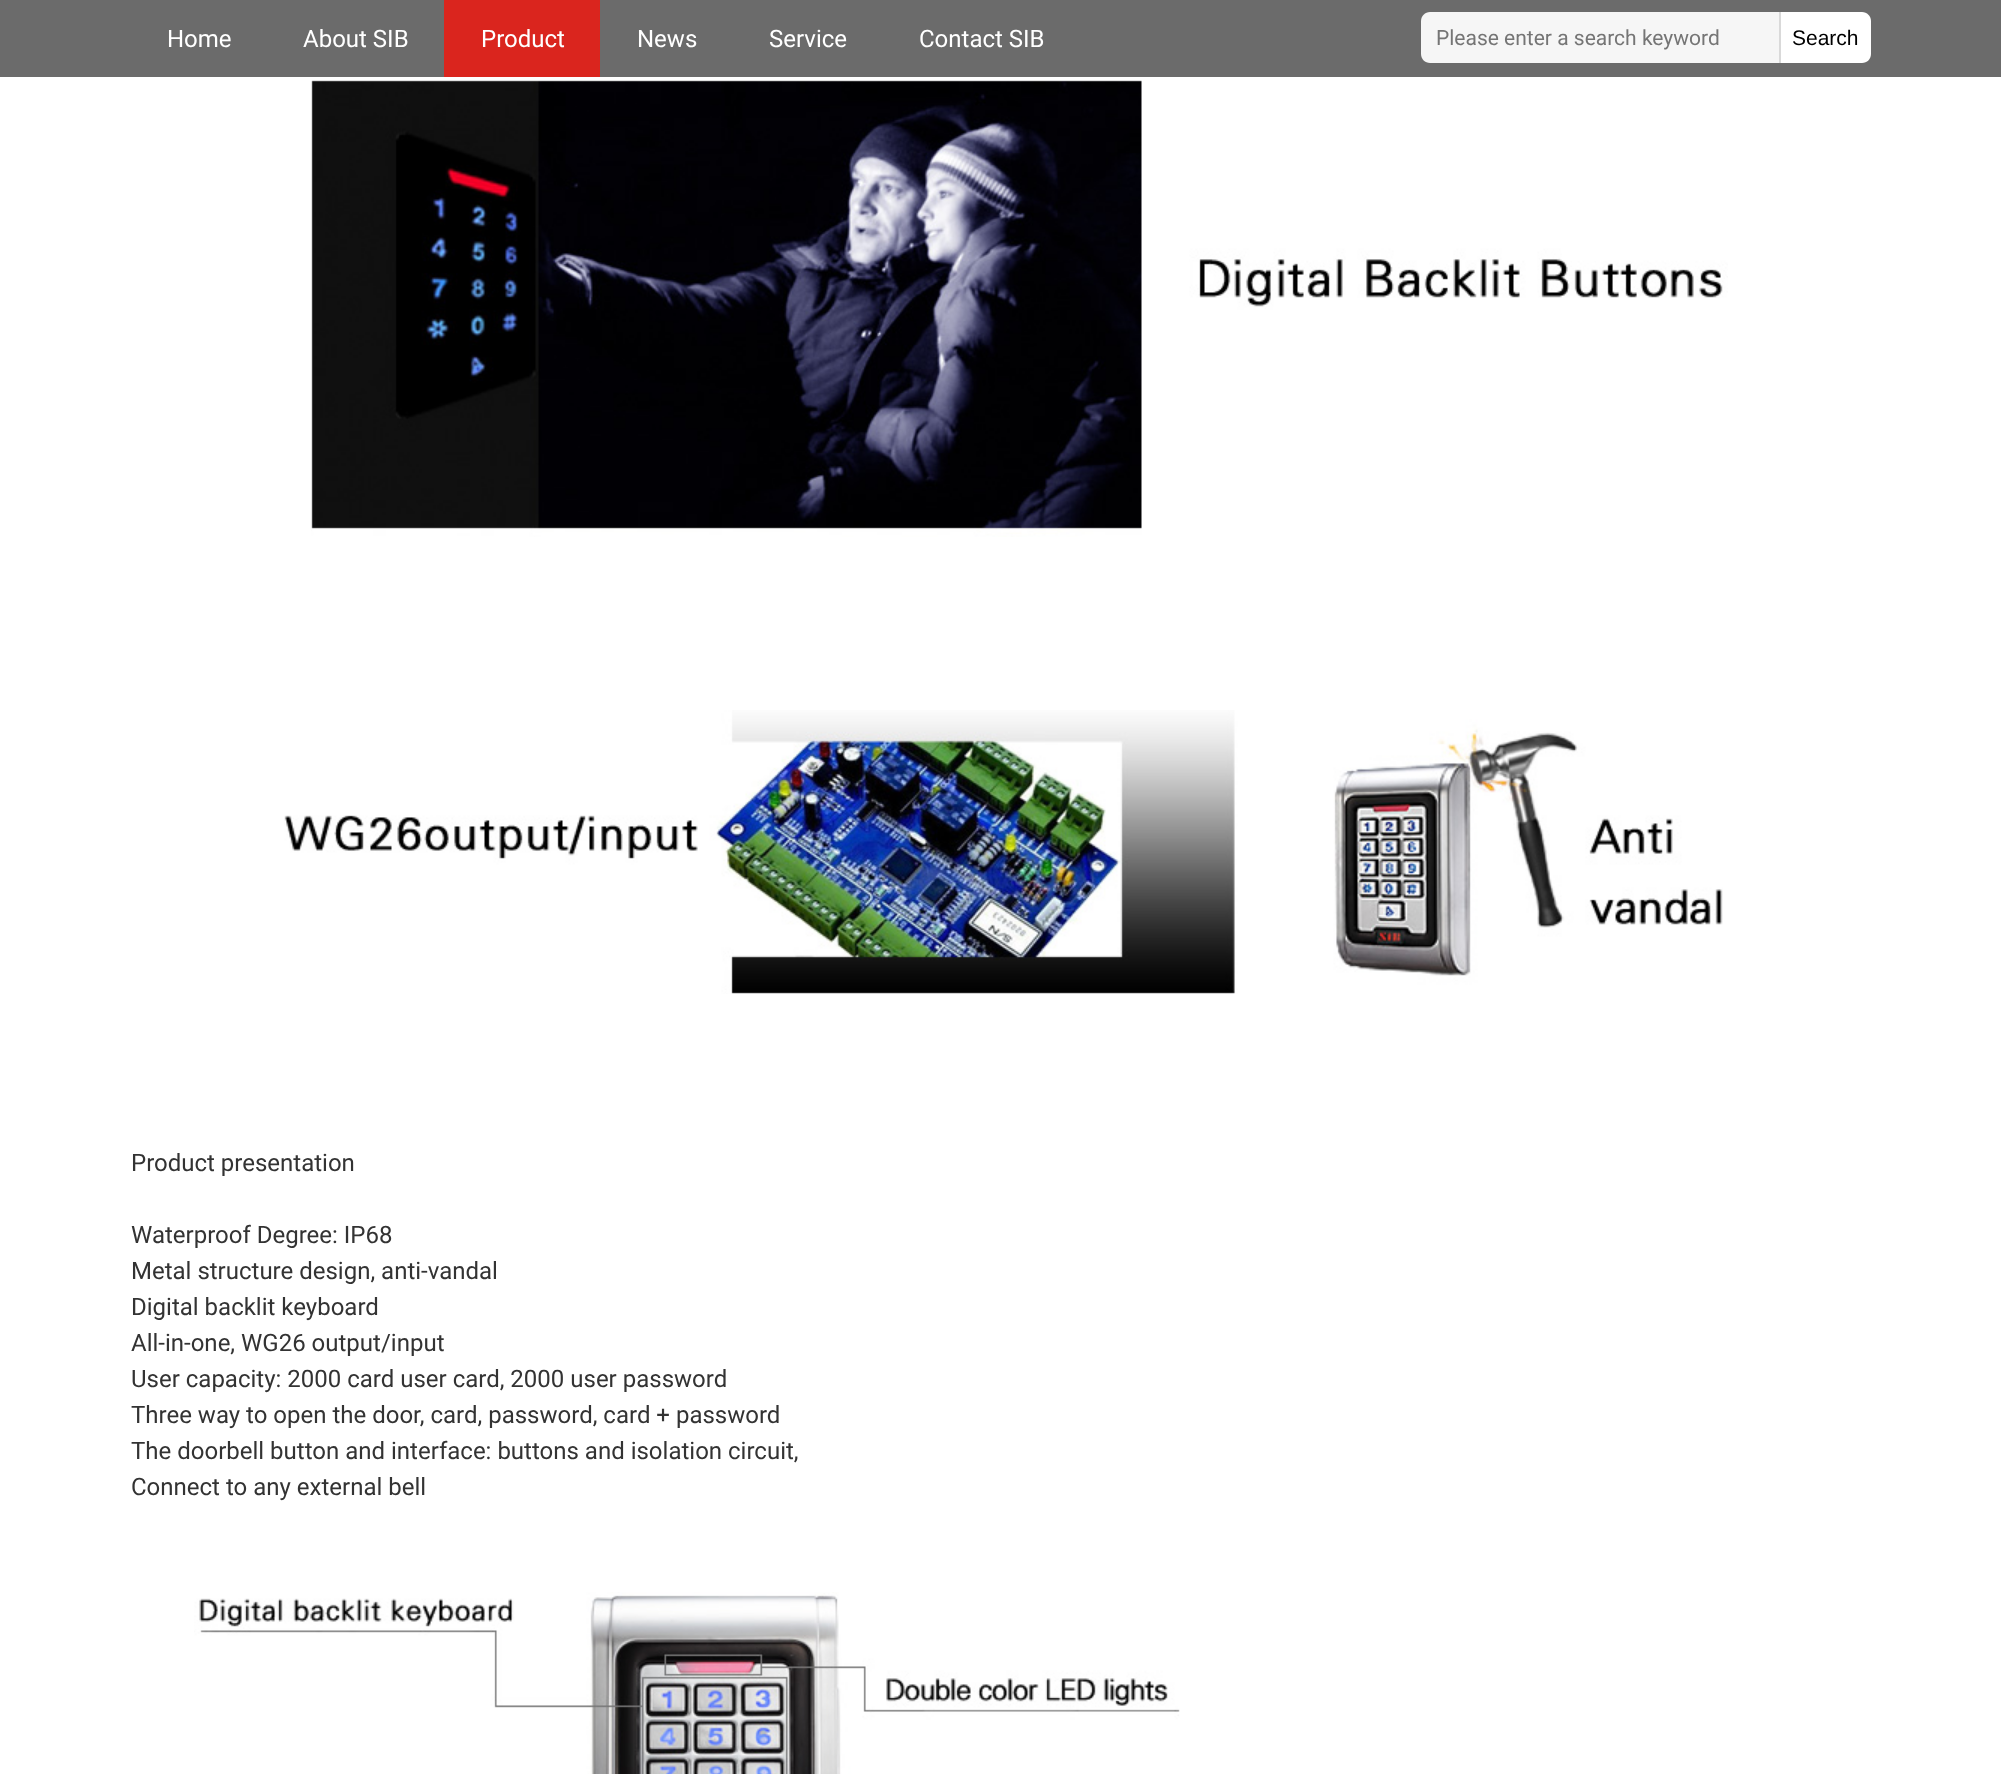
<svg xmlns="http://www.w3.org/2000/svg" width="2001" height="1774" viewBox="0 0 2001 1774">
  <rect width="100%" height="100%" fill="#fff"/>
  <path d="M0 0h2001v77H0z" fill="#6b6b6b"/>
  <path d="M444 0h156v77H444z" fill="#da251e"/>
  <path d="M1430 12H1781V63H1430C1425 63 1421 59 1421 54V21C1421 16 1425 12 1430 12Z" fill="#f6f6f6"/>
  <path d="M1779 12h2v51H1779z" fill="#d9d9d9"/>
  <path d="M1781 12H1862C1867 12 1871 16 1871 21V54C1871 59 1867 63 1862 63H1781Z" fill="#fff"/>
  <image x="311" y="80" width="1417" height="457" href="img/1.png"/>
  <image x="284" y="710" width="1439" height="284" href="img/2.png"/>
  <image x="194" y="1592" width="986" height="182" href="img/3.png"/>
  <g font-family="Roboto" font-size="24" fill="#fff">
    <text x="167" y="47">Home</text>
    <text x="303" y="47">About SIB</text>
    <text x="481" y="47">Product</text>
    <text x="637" y="47">News</text>
    <text x="769" y="47">Service</text>
    <text x="919" y="47">Contact SIB</text>
  </g>
  <text x="1436" y="45" font-family="Roboto" font-size="21" fill="#757575">Please enter a search keyword</text>
  <text x="1792" y="45" font-family="Liberation Sans" font-size="21" fill="#000">Search</text>
  <g font-family="Roboto" font-size="24" fill="#333">
    <text x="131" y="1171">Product presentation</text>
    <text x="131" y="1243">Waterproof Degree: IP68</text>
    <text x="131" y="1279">Metal structure design, anti-vandal</text>
    <text x="131" y="1315">Digital backlit keyboard</text>
    <text x="131" y="1351">All-in-one, WG26 output/input</text>
    <text x="131" y="1387">User capacity: 2000 card user card, 2000 user password</text>
    <text x="131" y="1423">Three way to open the door, card, password, card + password</text>
    <text x="131" y="1459">The doorbell button and interface: buttons and isolation circuit,</text>
    <text x="131" y="1495">Connect to any external bell</text>
  </g>
</svg>
